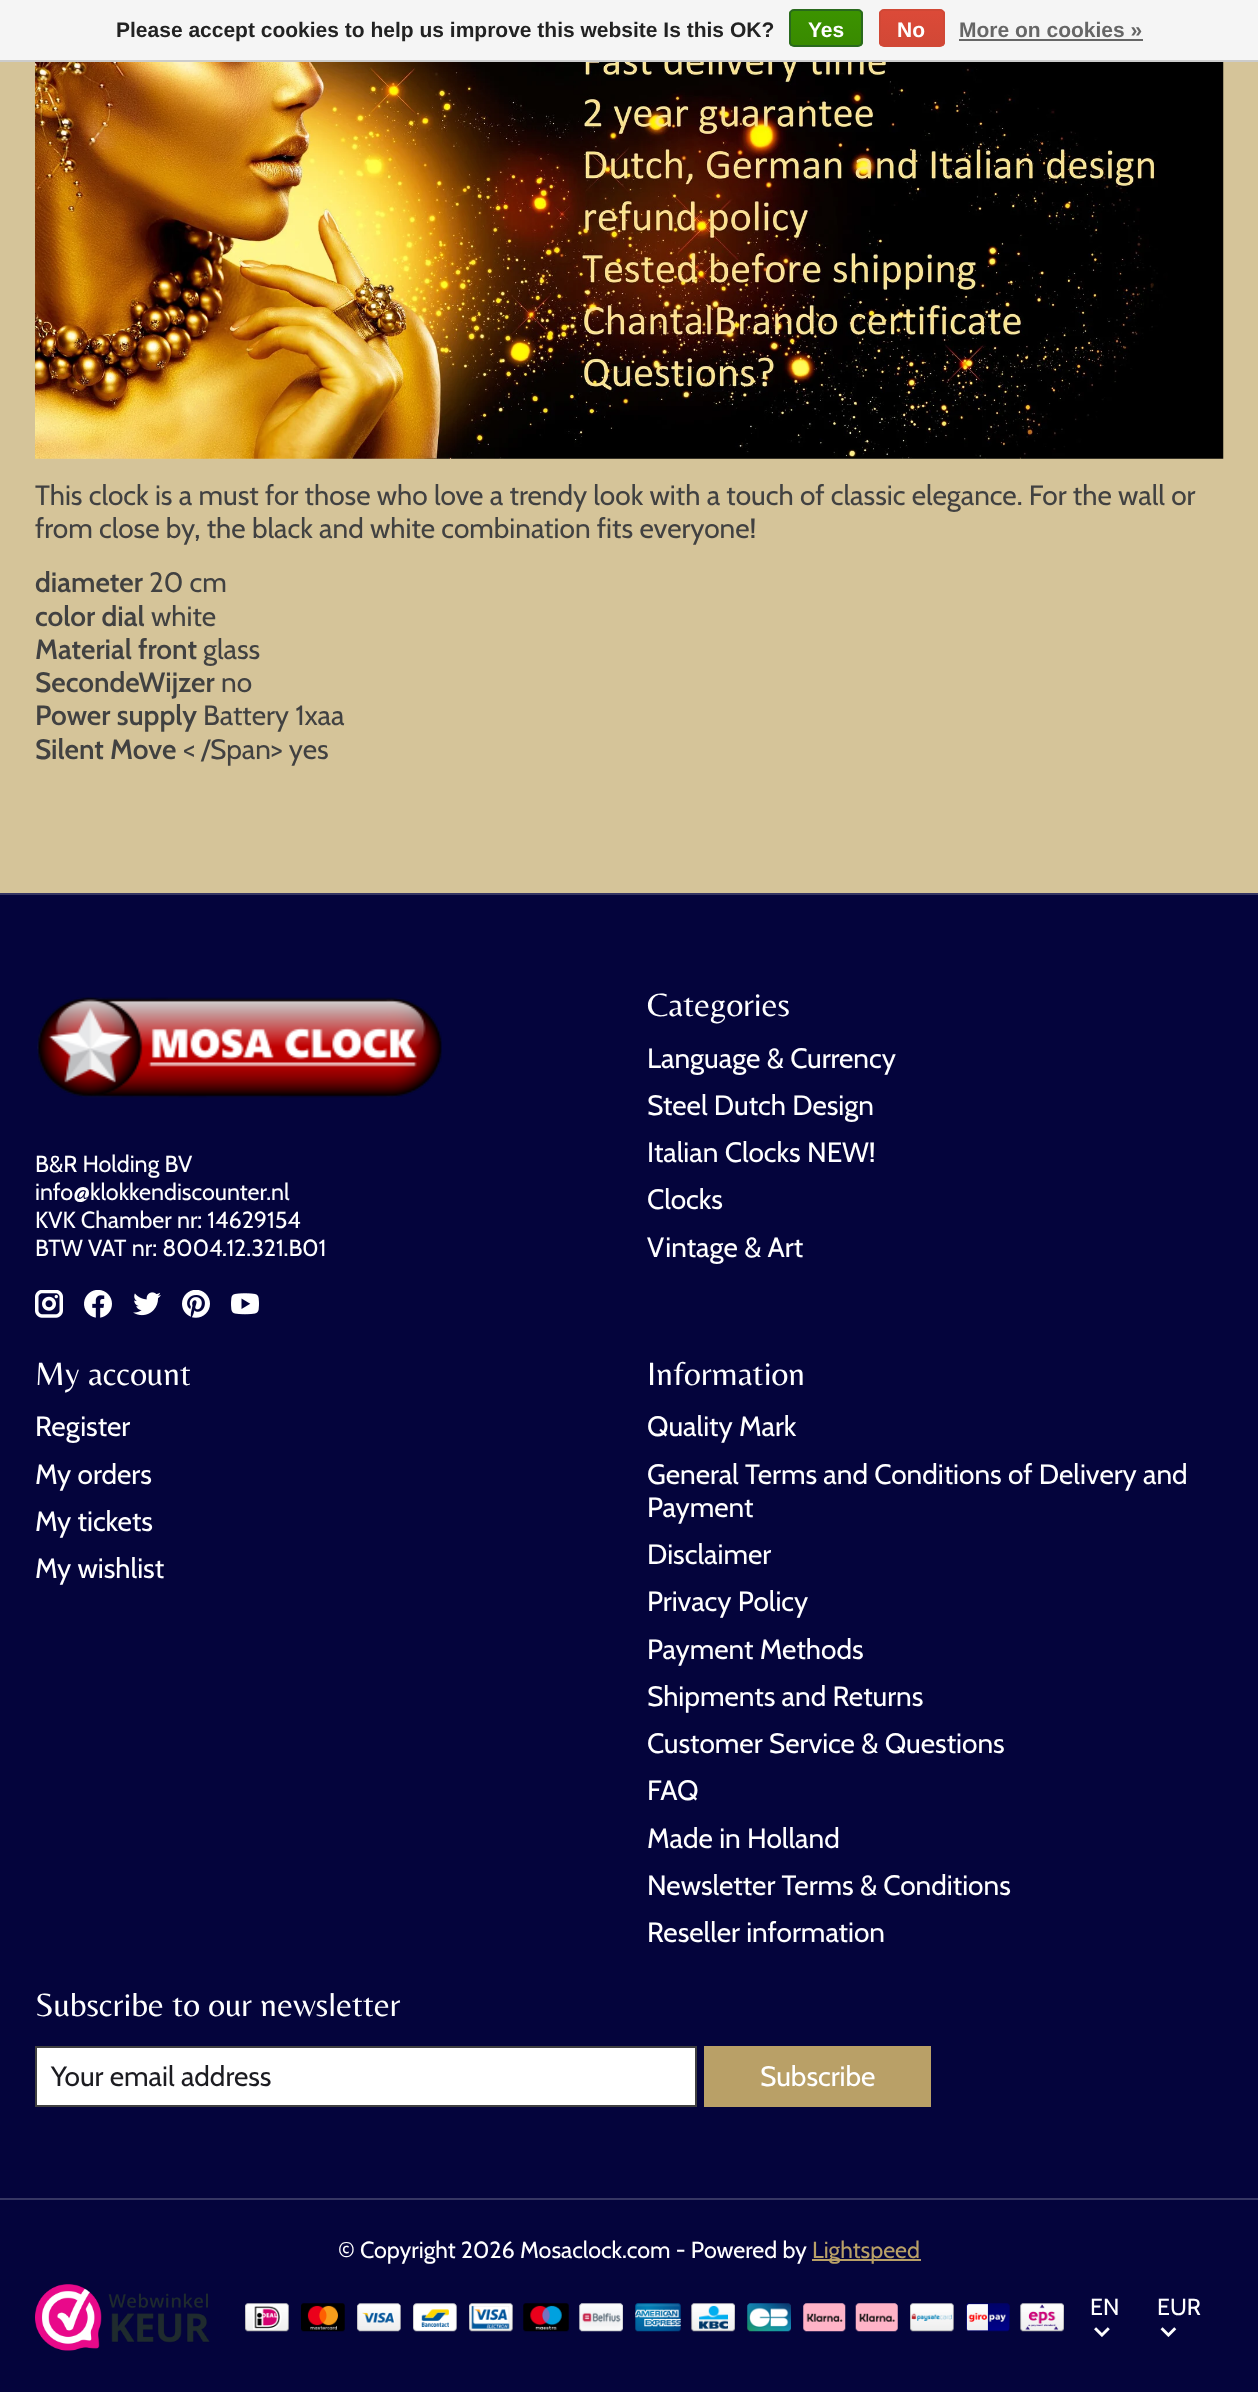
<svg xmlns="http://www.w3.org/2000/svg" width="1258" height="2392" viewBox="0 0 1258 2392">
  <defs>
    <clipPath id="clip1"><rect x="789" y="9" width="74" height="38" rx="5"/></clipPath>
    <linearGradient id="g1" gradientUnits="userSpaceOnUse" x1="826" y1="10" x2="826" y2="46"><stop offset="0" stop-color="#3c9300"/><stop offset="1" stop-color="#398a00"/></linearGradient>
    <clipPath id="clip2"><rect x="879" y="9" width="66" height="38" rx="5"/></clipPath>
    <linearGradient id="g2" gradientUnits="userSpaceOnUse" x1="912" y1="10" x2="912" y2="46"><stop offset="0" stop-color="#dc4a38"/><stop offset="1" stop-color="#d14836"/></linearGradient>
  </defs>
  <rect width="100%" height="100%" fill="#d5c499"/>
  <path d="M0 0h1258v60H0z" fill="#f5f5f5"/>
  <path d="M0 60h1258v2H0z" fill="#ccc"/>
  <g clip-path="url(#clip1)">
    <path d="M789 11h74v35H789z" fill="url(#g1)"/>
  </g>
  <rect x="790" y="10" width="72" height="36" rx="4" fill="none" stroke="#29691d" stroke-width="2"/>
  <g clip-path="url(#clip2)">
    <path d="M879 11h66v35H879z" fill="url(#g2)"/>
  </g>
  <rect x="880" y="10" width="64" height="36" rx="4" fill="none" stroke="#d14836" stroke-width="2"/>
  <path d="M959 39h184v2H959z" fill="#666"/>
  <image x="35" y="62" width="1189" height="397" href="img/1.png"/>
  <path d="M0 895h1258v1497H0z" fill="#04043c"/>
  <path d="M0 893h1258v2H0z" fill="#363663"/>
  <image x="37" y="997" width="405" height="101" href="img/2.png"/>
  <image x="35" y="1290" width="28" height="28" href="img/3.png"/>
  <image x="84" y="1290" width="28" height="28" href="img/4.png"/>
  <image x="133" y="1292" width="28" height="24" href="img/5.png"/>
  <image x="182" y="1290" width="28" height="28" href="img/6.png"/>
  <image x="231" y="1293" width="28" height="22" href="img/7.png"/>
  <path d="M36 2047h660v59H36z" fill="#fff" stroke="#414141" stroke-width="2"/>
  <path d="M704 2046h227v61H704z" fill="#b9a067"/>
  <path d="M0 2198h1258v2H0z" fill="#363663"/>
  <path d="M812 2259h109v2H812z" fill="#b9a067"/>
  <image x="35" y="2284" width="175" height="67" href="img/8.png"/>
  <image x="245" y="2303" width="44" height="29" href="img/9.png"/>
  <image x="301" y="2303" width="44" height="29" href="img/10.png"/>
  <image x="357" y="2303" width="44" height="29" href="img/11.png"/>
  <image x="413" y="2303" width="44" height="29" href="img/12.png"/>
  <image x="469" y="2303" width="44" height="29" href="img/13.png"/>
  <image x="523" y="2303" width="46" height="29" href="img/14.png"/>
  <image x="579" y="2303" width="44" height="29" href="img/15.png"/>
  <image x="635" y="2303" width="46" height="29" href="img/16.png"/>
  <image x="691" y="2303" width="44" height="29" href="img/17.png"/>
  <image x="747" y="2303" width="44" height="29" href="img/18.png"/>
  <image x="803" y="2303" width="43" height="29" href="img/19.png"/>
  <image x="855" y="2303" width="43" height="29" href="img/20.png"/>
  <image x="910" y="2303" width="44" height="29" href="img/21.png"/>
  <image x="966" y="2303" width="44" height="29" href="img/22.png"/>
  <image x="1020" y="2303" width="44" height="29" href="img/23.png"/>
  <image x="1094" y="2327" width="16" height="10" href="img/24.png"/>
  <image x="1160" y="2327" width="17" height="10" href="img/25.png"/>
  <text x="116" y="37" font-family="Liberation Sans" font-size="21" font-weight="bold" fill="#222">Please accept cookies to help us improve this website Is this OK?</text>
  <g font-family="Liberation Sans" font-size="21" font-weight="bold" fill="#fff">
    <text x="808" y="37">Yes</text>
    <text x="897" y="37">No</text>
  </g>
  <text x="959" y="37" font-family="Liberation Sans" font-size="21" font-weight="bold" fill="#666">More on cookies »</text>
  <g font-family="Cabin" font-size="28" fill="#414141">
    <text x="35" y="505">This clock is a must for those who love a trendy look with a touch of classic elegance. For the wall or</text>
    <text x="35" y="538">from close by, the black and white combination fits everyone!</text>
  </g>
  <text x="35" y="592" font-family="Cabin" font-size="28" font-weight="600" fill="#414141">diameter</text>
  <text x="149" y="592" font-family="Cabin" font-size="28" fill="#414141">20 cm</text>
  <text x="35" y="626" font-family="Cabin" font-size="28" font-weight="600" fill="#414141">color dial</text>
  <text x="151" y="626" font-family="Cabin" font-size="28" fill="#414141">white</text>
  <text x="35" y="659" font-family="Cabin" font-size="28" font-weight="600" fill="#414141">Material front</text>
  <text x="203" y="659" font-family="Cabin" font-size="28" fill="#414141">glass</text>
  <text x="35" y="692" font-family="Cabin" font-size="28" font-weight="600" fill="#414141">SecondeWijzer</text>
  <text x="221" y="692" font-family="Cabin" font-size="28" fill="#414141">no</text>
  <text x="35" y="725" font-family="Cabin" font-size="28" font-weight="600" fill="#414141">Power supply</text>
  <text x="203" y="725" font-family="Cabin" font-size="28" fill="#414141">Battery 1xaa</text>
  <text x="35" y="759" font-family="Cabin" font-size="28" font-weight="600" fill="#414141">Silent Move</text>
  <text x="183" y="759" font-family="Cabin" font-size="28" fill="#414141">&lt; /Span&gt; yes</text>
  <g font-family="Cabin" font-size="23.3" fill="#fff">
    <text x="35" y="1172">B&amp;R Holding BV</text>
    <text x="35" y="1200">info@klokkendiscounter.nl</text>
    <text x="35" y="1228">KVK Chamber nr: 14629154</text>
    <text x="35" y="1256">BTW VAT nr: 8004.12.321.B01</text>
  </g>
  <text x="647" y="1016" font-family="Belleza" font-size="33.6" fill="#fff">Categories</text>
  <g font-family="Cabin" font-size="28" fill="#fff">
    <text x="647" y="1068">Language &amp; Currency</text>
    <text x="647" y="1115">Steel Dutch Design</text>
    <text x="647" y="1162">Italian Clocks NEW!</text>
    <text x="647" y="1209">Clocks</text>
    <text x="647" y="1257">Vintage &amp; Art</text>
  </g>
  <text x="35" y="1385" font-family="Belleza" font-size="33.6" fill="#fff">My account</text>
  <g font-family="Cabin" font-size="28" fill="#fff">
    <text x="35" y="1436">Register</text>
    <text x="35" y="1484">My orders</text>
    <text x="35" y="1531">My tickets</text>
    <text x="35" y="1578">My wishlist</text>
  </g>
  <text x="647" y="1385" font-family="Belleza" font-size="33.6" fill="#fff">Information</text>
  <g font-family="Cabin" font-size="28" fill="#fff">
    <text x="647" y="1436">Quality Mark</text>
    <text x="647" y="1484">General Terms and Conditions of Delivery and</text>
    <text x="647" y="1517">Payment</text>
    <text x="647" y="1564">Disclaimer</text>
    <text x="647" y="1611">Privacy Policy</text>
    <text x="647" y="1659">Payment Methods</text>
    <text x="647" y="1706">Shipments and Returns</text>
    <text x="647" y="1753">Customer Service &amp; Questions</text>
    <text x="647" y="1800">FAQ</text>
    <text x="647" y="1848">Made in Holland</text>
    <text x="647" y="1895">Newsletter Terms &amp; Conditions</text>
    <text x="647" y="1942">Reseller information</text>
  </g>
  <text x="35" y="2016" font-family="Belleza" font-size="33.6" fill="#fff">Subscribe to our newsletter</text>
  <text x="51" y="2086" font-family="Cabin" font-size="28" fill="#1c1c21">Your email address</text>
  <text x="760" y="2086" font-family="Cabin" font-size="28" fill="#fff">Subscribe</text>
  <text x="338" y="2258" font-family="Cabin" font-size="23.3" fill="#fff">© Copyright 2026 Mosaclock.com - Powered by</text>
  <text x="812" y="2258" font-family="Cabin" font-size="23.3" fill="#b9a067">Lightspeed</text>
  <g font-family="Cabin" font-size="23.3" fill="#fff">
    <text x="1090" y="2315">EN</text>
    <text x="1157" y="2315">EUR</text>
  </g>
</svg>
